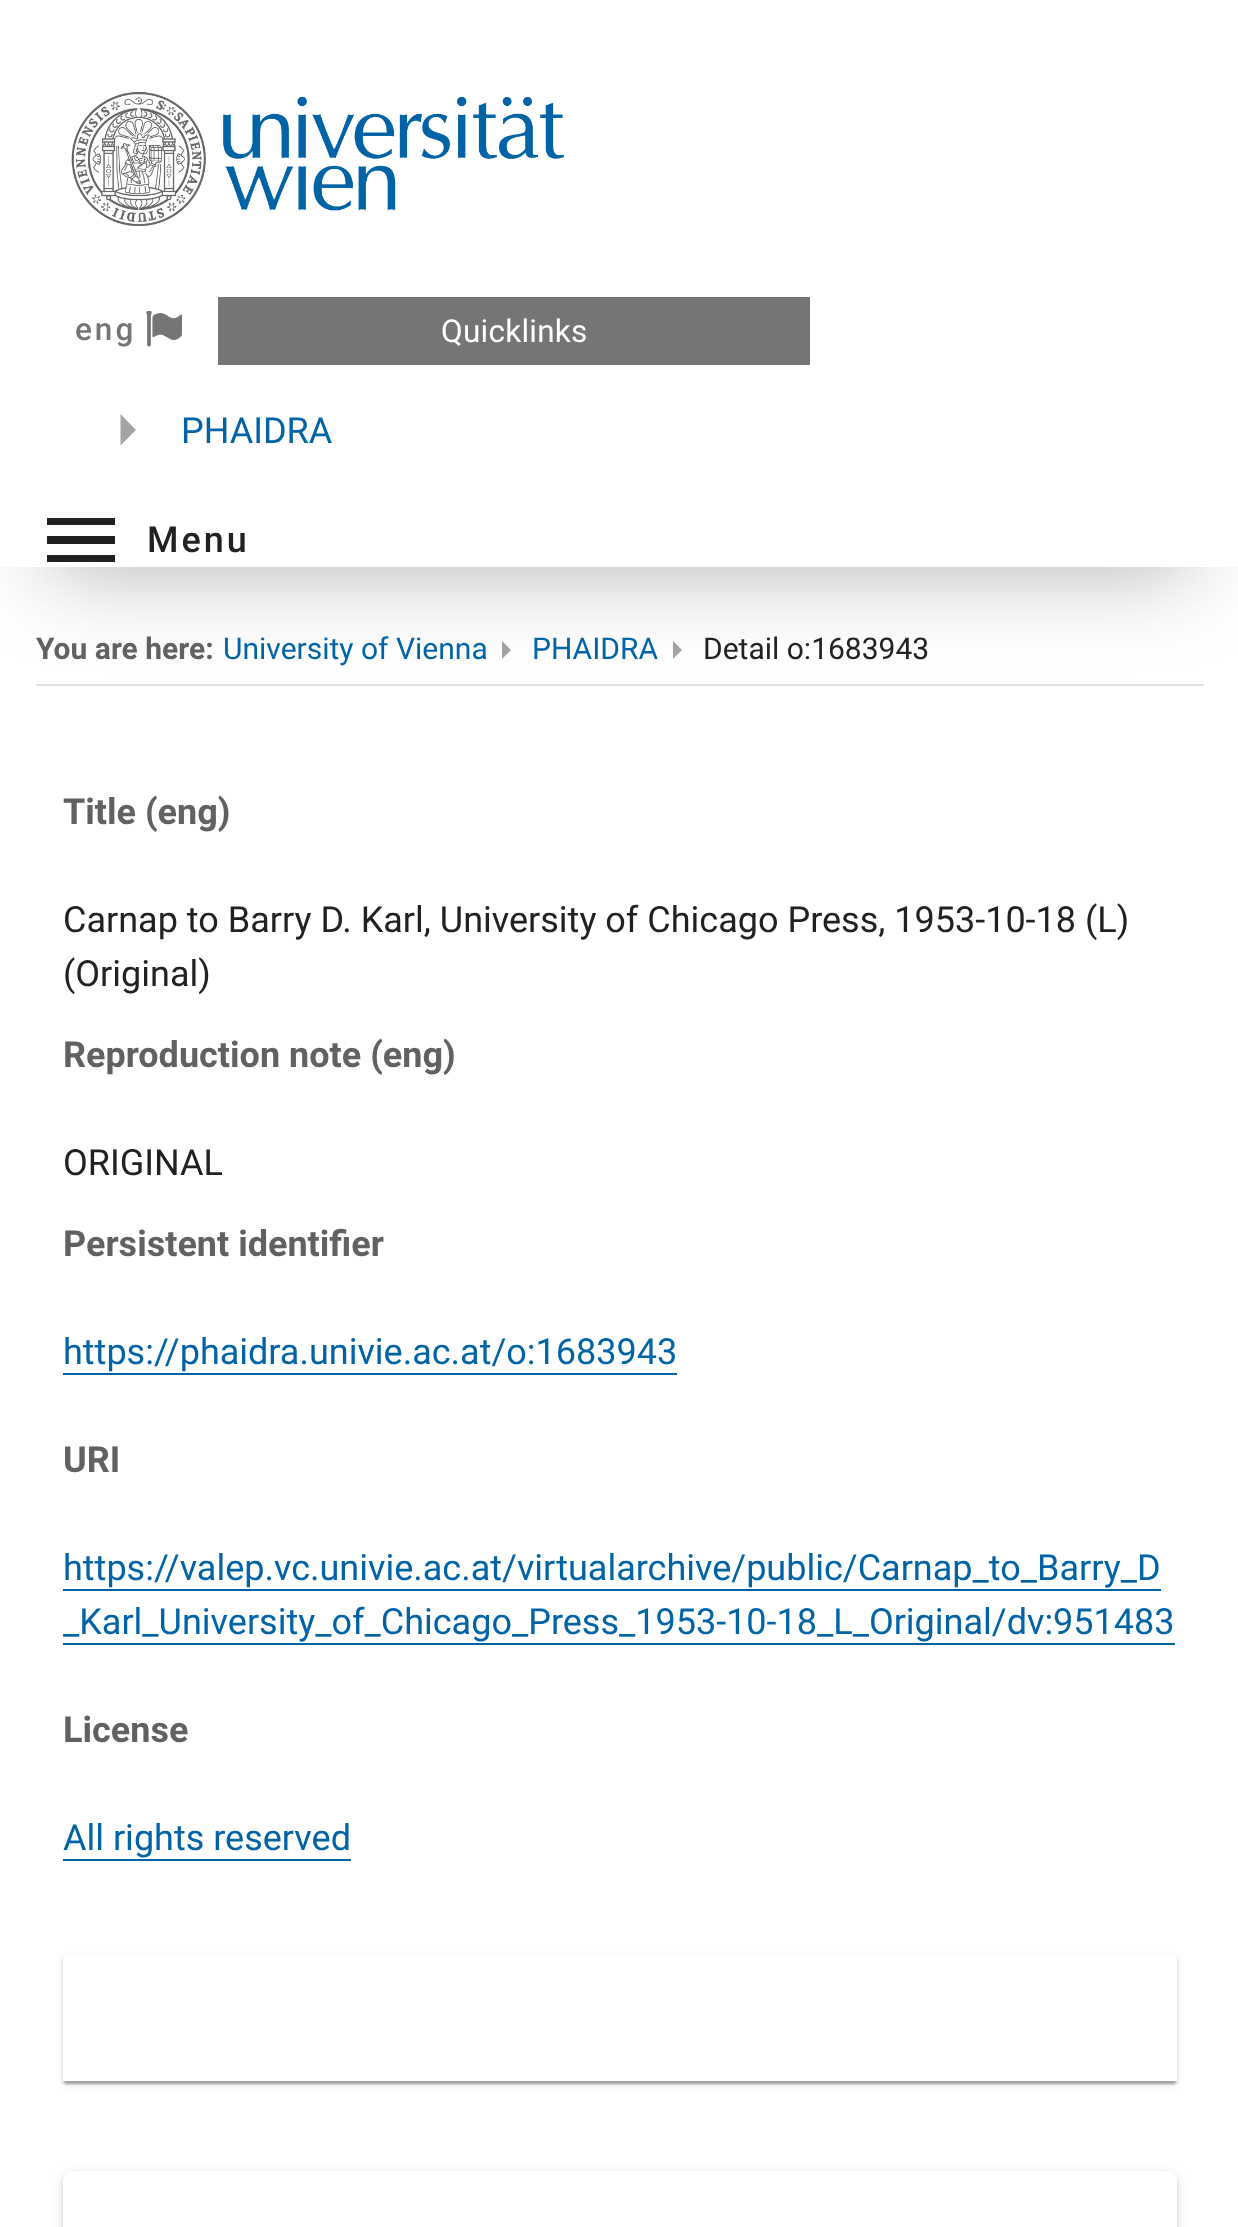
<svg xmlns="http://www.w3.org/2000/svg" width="1238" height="2227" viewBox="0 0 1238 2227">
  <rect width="100%" height="100%" fill="#fff"/>
  <path d="M502 641V659L511 650Z" fill="#a4a4a4"/>
  <path d="M673 641V659L682 650Z" fill="#a4a4a4"/>
  <path d="M36 684h1168v2H36z" fill="#e0e0e0"/>
  <path d="M50 32h1140v540H50z" fill="#46464666" filter="blur(45px)"/>
  <path d="M0 0h36v567H0z" fill="#fff"/>
  <path d="M36 0h1202v567H36z" fill="#fff"/>
  <image x="71" y="91" width="493" height="135" href="img/1.png"/>
  <image x="146" y="311" width="36" height="36" href="img/2.png"/>
  <path d="M218 297h592v68H218z" fill="#757575"/>
  <path d="M120.5 414V445.5L136 430Z" fill="#a4a4a4"/>
  <path d="M47 518H115V525H47ZM47 536H115V544H47ZM47 555H115V562H47Z" fill="#212121"/>
  <path d="M63 1373h614v2H63z" fill="#0063a6"/>
  <path d="M63 1589h1098v2H63z" fill="#0063a6"/>
  <path d="M63 1643h1112v2H63z" fill="#0063a6"/>
  <path d="M63 1859h288v2H63z" fill="#0063a6"/>
  <path d="M63 1958h1114v126H63z" fill="#0000001f" filter="blur(3.5px)"/>
  <path d="M63 1958h1114v126H63z" fill="#00000024" filter="blur(1px)"/>
  <path d="M65 1962h1110v122H65z" fill="#00000033" filter="blur(1px)"/>
  <path d="M63 1955h1114v126H63z" fill="#fff"/>
  <rect x="63" y="2174" width="1114" height="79" rx="9" fill="#0000001f" filter="blur(5.5px)"/>
  <rect x="63" y="2176" width="1114" height="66" rx="9" fill="#00000024" filter="blur(2px)"/>
  <rect x="63" y="2171" width="1114" height="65" rx="9" fill="#fff"/>
  <text x="75" y="340" font-family="Roboto" font-size="31.5" font-weight="500" letter-spacing="3" fill="#757575">eng</text>
  <text x="441" y="342" font-family="Roboto" font-size="31.5" letter-spacing="0.25" fill="#fff">Quicklinks</text>
  <text x="181" y="443" font-family="Roboto" font-size="36" fill="#0063a6">PHAIDRA</text>
  <text x="147" y="552" font-family="Roboto" font-size="36" font-weight="500" letter-spacing="3" fill="#212121">Menu</text>
  <text x="36" y="659" font-family="Roboto" font-size="30" font-weight="bold" fill="#616161">You are here:</text>
  <g font-family="Roboto" font-size="30" fill="#0063a6">
    <text x="223" y="659">University of Vienna</text>
    <text x="532" y="659">PHAIDRA</text>
  </g>
  <text x="703" y="659" font-family="Roboto" font-size="30" fill="#212121">Detail o:1683943</text>
  <text x="63" y="824" font-family="Roboto" font-size="36" font-weight="bold" fill="#616161">Title (eng)</text>
  <g font-family="Roboto" font-size="36" fill="#212121">
    <text x="63" y="932">Carnap to Barry D. Karl, University of Chicago Press, 1953-10-18 (L)</text>
    <text x="63" y="986">(Original)</text>
  </g>
  <text x="63" y="1067" font-family="Roboto" font-size="36" font-weight="bold" fill="#616161">Reproduction note (eng)</text>
  <text x="63" y="1175" font-family="Roboto" font-size="36" fill="#212121">ORIGINAL</text>
  <text x="63" y="1256" font-family="Roboto" font-size="36" font-weight="bold" fill="#616161">Persistent identifier</text>
  <text x="63" y="1364" font-family="Roboto" font-size="36" fill="#0063a6">https://phaidra.univie.ac.at/o:1683943</text>
  <text x="63" y="1472" font-family="Roboto" font-size="36" font-weight="bold" fill="#616161">URI</text>
  <g font-family="Roboto" font-size="36" fill="#0063a6">
    <text x="63" y="1580">https://valep.vc.univie.ac.at/virtualarchive/public/Carnap_to_Barry_D</text>
    <text x="63" y="1634">_Karl_University_of_Chicago_Press_1953-10-18_L_Original/dv:951483</text>
  </g>
  <text x="63" y="1742" font-family="Roboto" font-size="36" font-weight="bold" fill="#616161">License</text>
  <text x="63" y="1850" font-family="Roboto" font-size="36" fill="#0063a6">All rights reserved</text>
</svg>
